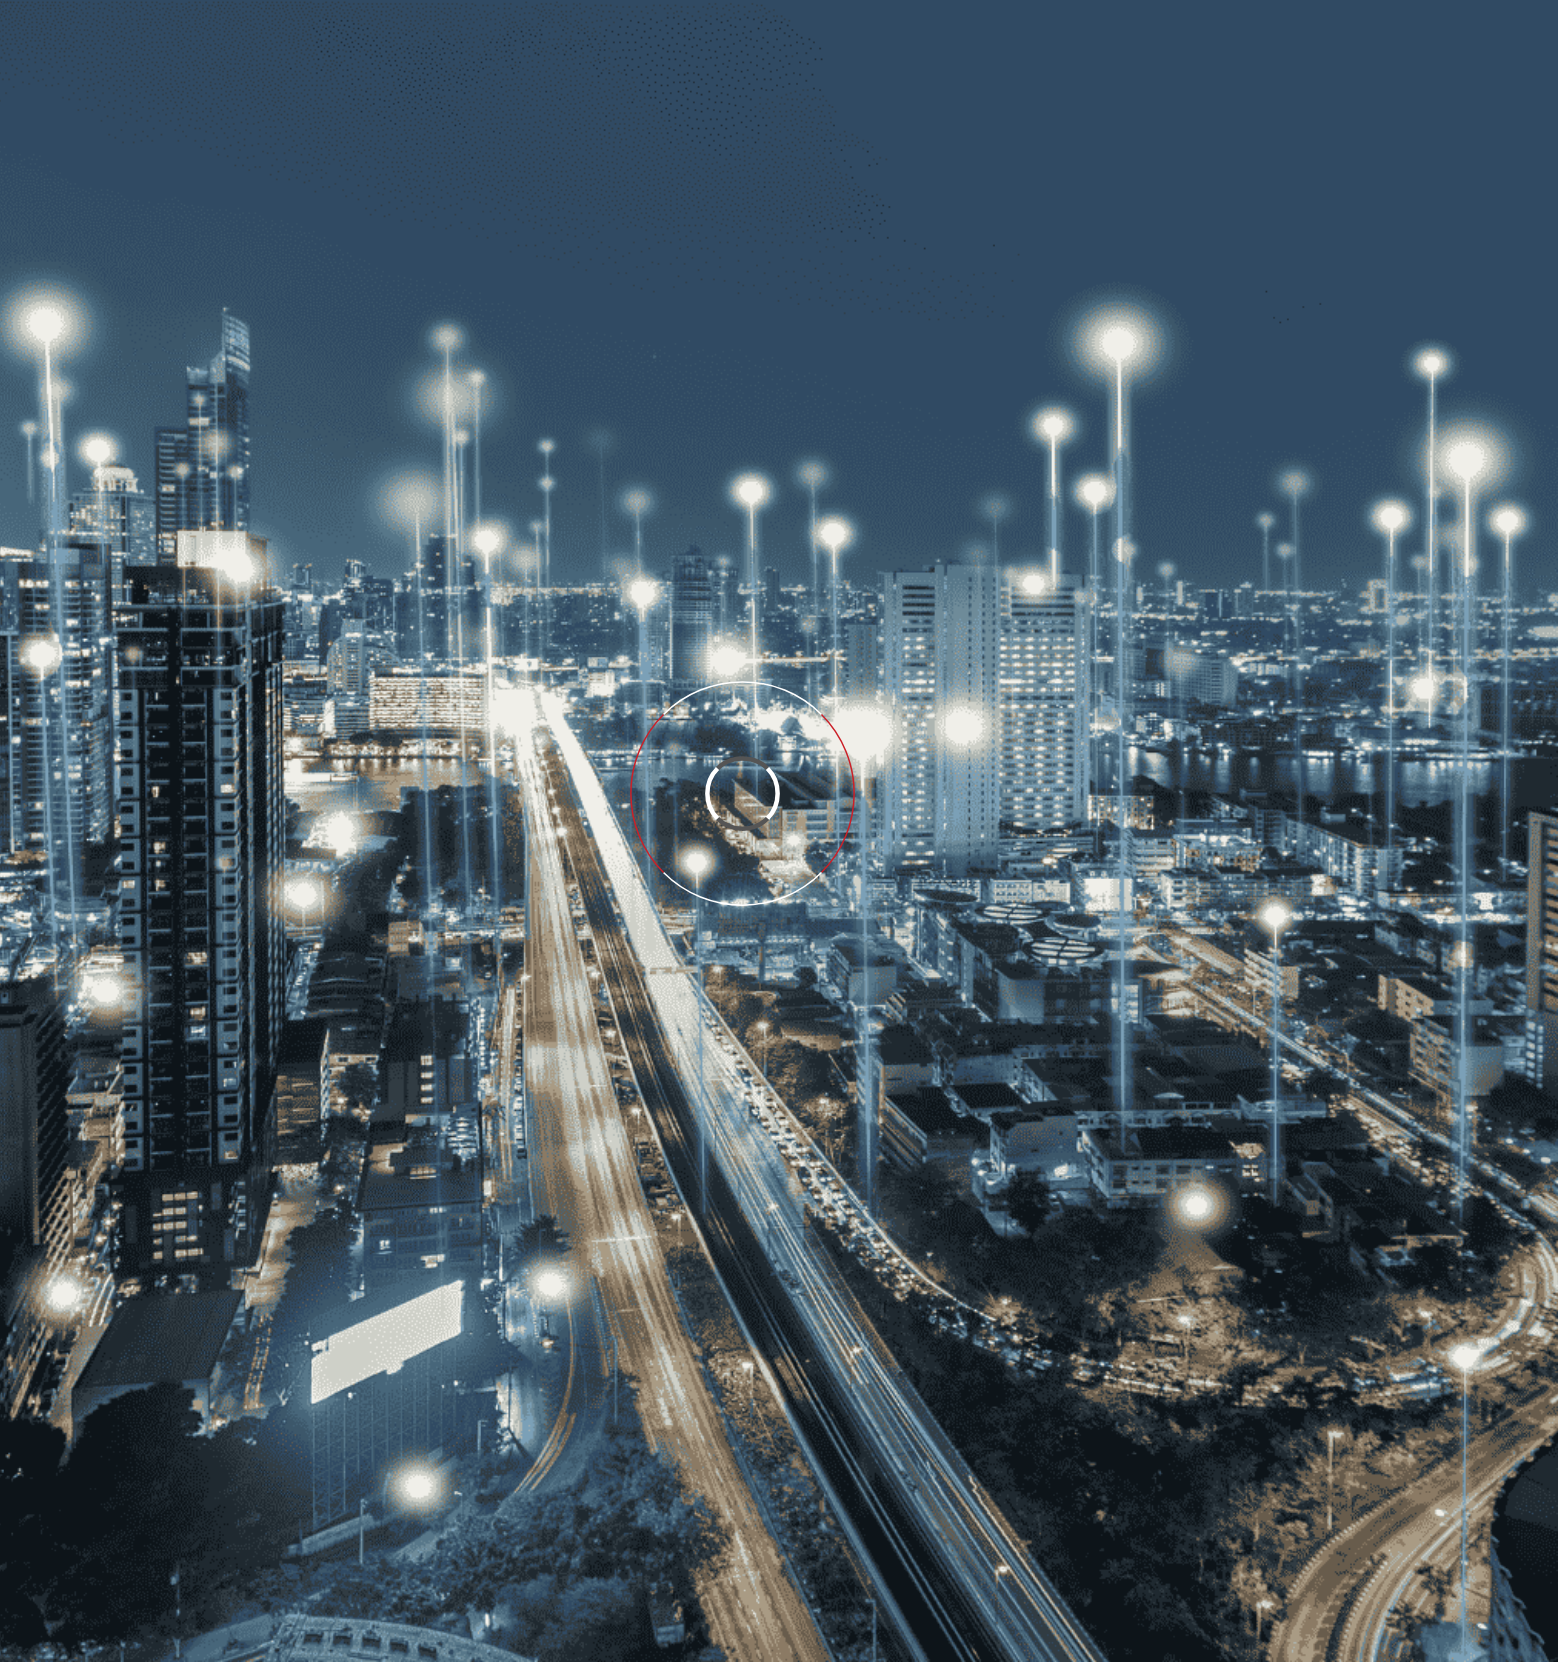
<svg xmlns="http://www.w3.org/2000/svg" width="1558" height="1662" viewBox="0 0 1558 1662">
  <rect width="100%" height="100%" fill="#fff"/>
  <image x="0" y="0" width="1558" height="1662" href="img/1.png"/>
  <path d="M663.5 714.5C707 671 778 671 821.5 714.5" fill="none" stroke="#fff" stroke-width="1.5"/>
  <path d="M821.5 714.5C865 758 865 829 821.5 872.5" fill="none" stroke="#cb2028" stroke-width="1.5"/>
  <path d="M821.5 872.5C778 916 707 916 663.5 872.5" fill="none" stroke="#fff" stroke-width="1.5"/>
  <path d="M663.5 872.5C620 829 620 758 663.5 714.5" fill="none" stroke="#cb2028" stroke-width="1.5"/>
  <path d="M717.5 768.5C731 755 754 755 767.5 768.5" fill="none" stroke="#555" stroke-width="4.5"/>
  <path d="M767.5 768.5C781 782 781 805 767.5 818.5" fill="none" stroke="#fff" stroke-width="4.5"/>
  <path d="M767.5 818.5C754 832 731 832 717.5 818.5" fill="none" stroke="#555" stroke-width="4.5"/>
  <path d="M717.5 818.5C704 805 704 782 717.5 768.5" fill="none" stroke="#fff" stroke-width="4.5"/>
</svg>
